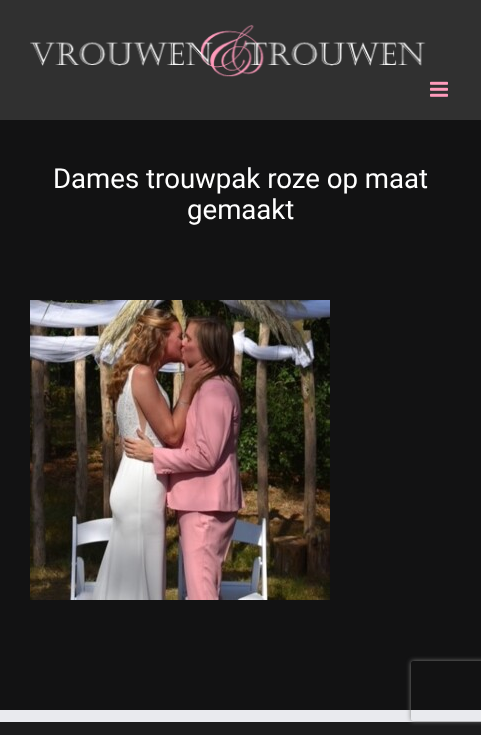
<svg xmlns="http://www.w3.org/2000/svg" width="481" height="735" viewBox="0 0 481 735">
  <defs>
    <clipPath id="clip1"><path d="M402 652H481V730H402ZM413 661H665C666 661 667 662 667 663V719C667 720 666 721 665 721H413C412 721 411 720 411 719V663C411 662 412 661 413 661Z" clip-rule="evenodd"/></clipPath>
  </defs>
  <rect width="100%" height="100%" fill="#121213"/>
  <path d="M0 0h481v120H0z" fill="#303030"/>
  <image x="30" y="24" width="396" height="53" href="img/1.png"/>
  <image x="430" y="81" width="18" height="16" href="img/2.png"/>
  <image x="30" y="300" width="300" height="300" href="img/3.png"/>
  <path d="M0 722h481v13H0z" fill="#1b1b1c"/>
  <path d="M0 710h481v12H0z" fill="#e9eaee"/>
  <g clip-path="url(#clip1)">
    <rect x="411" y="661" width="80" height="60" rx="2" fill="#808080" filter="blur(2.5px)"/>
  </g>
  <g font-family="Roboto" font-size="27.6" fill="#fff">
    <text x="53" y="188">Dames trouwpak roze op maat</text>
    <text x="187" y="219">gemaakt</text>
  </g>
</svg>
